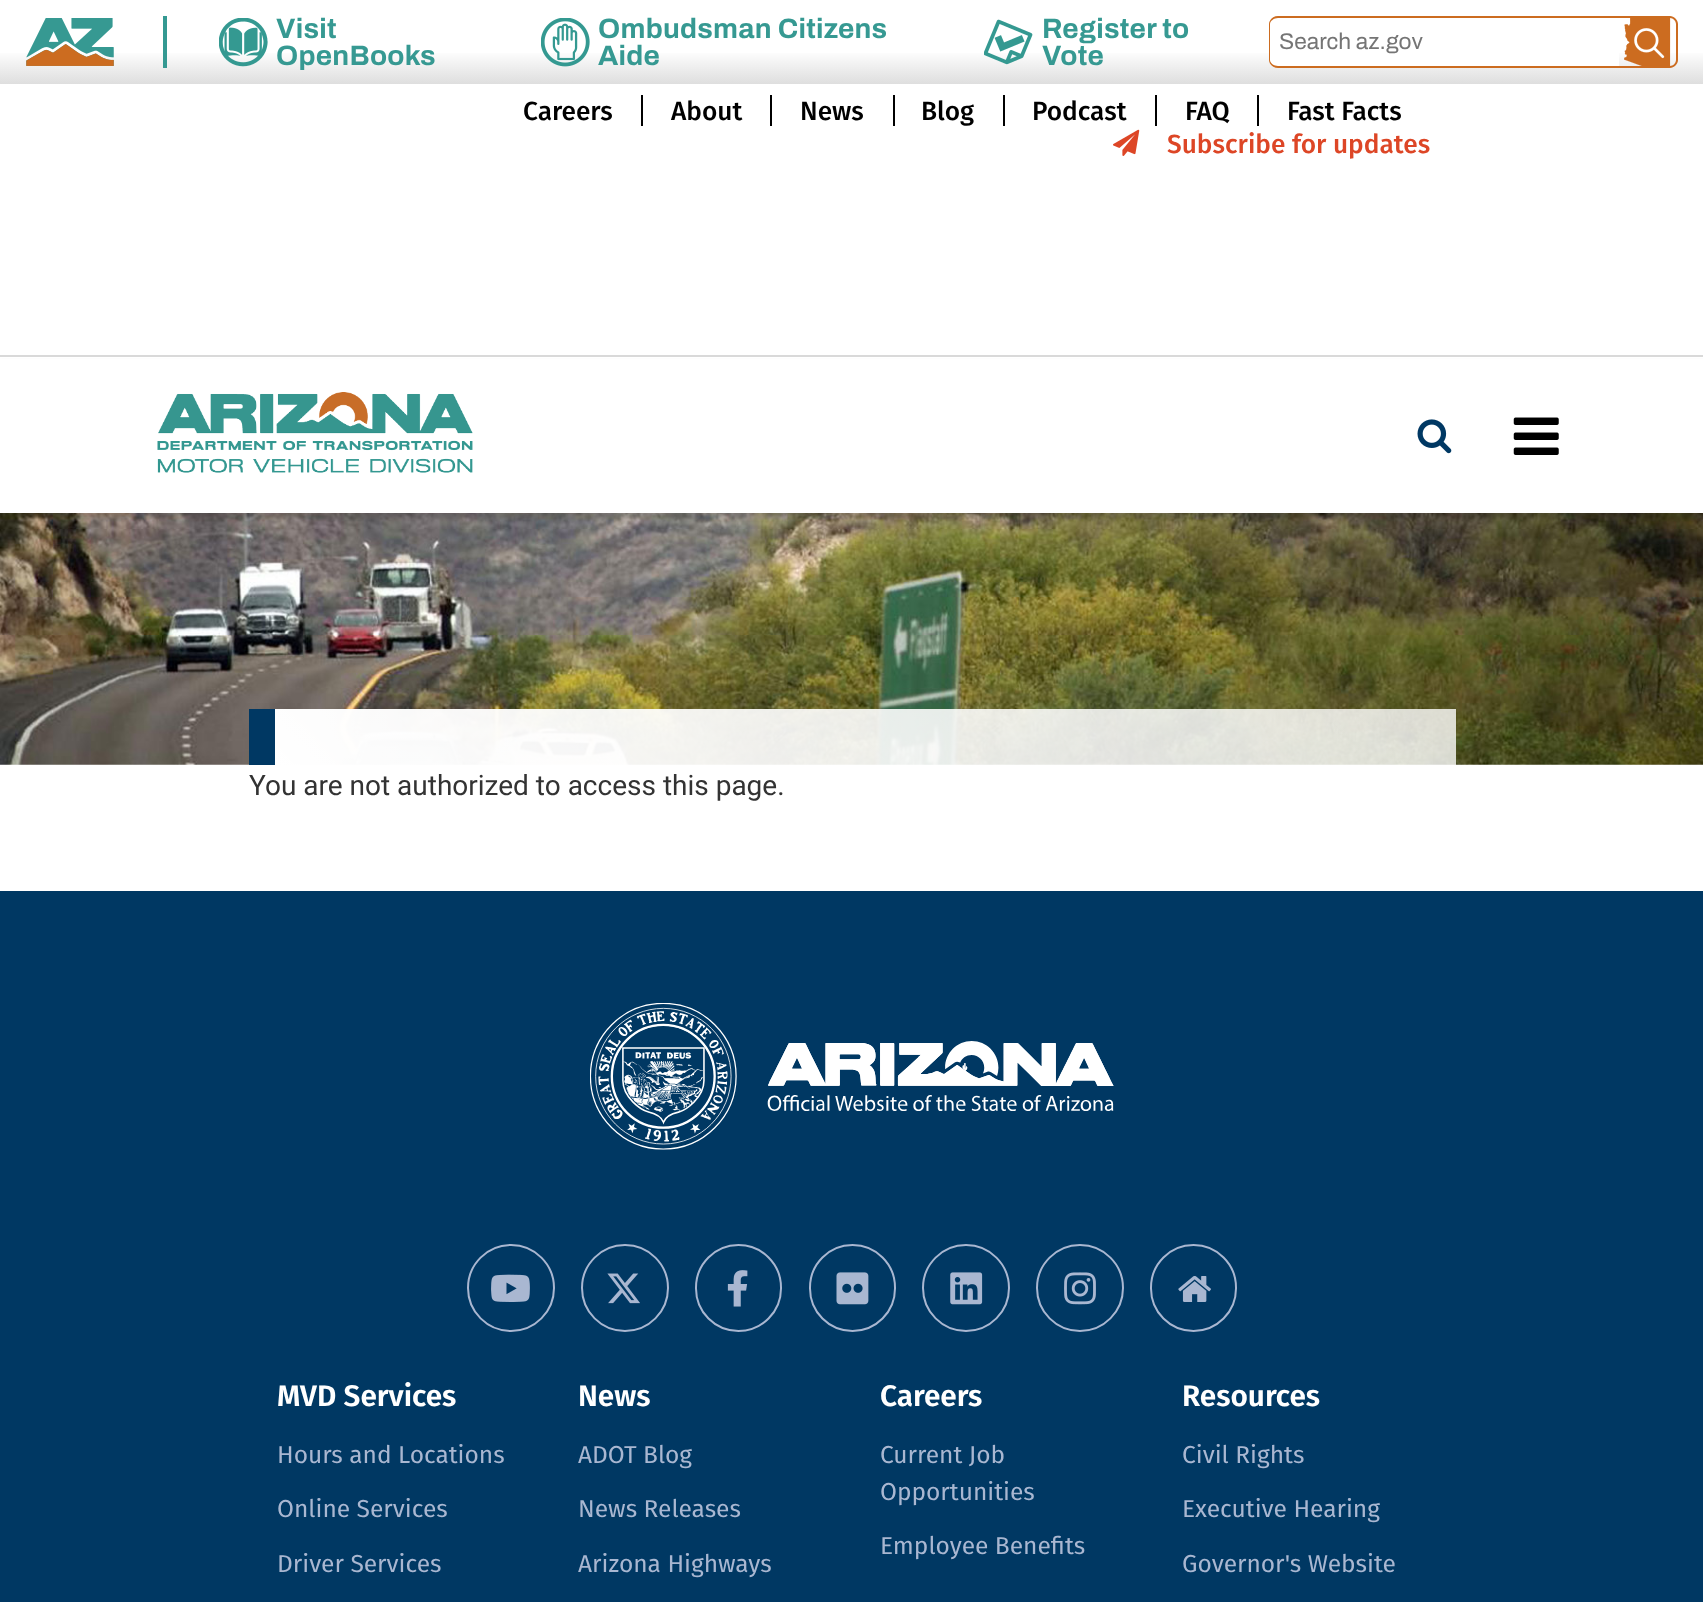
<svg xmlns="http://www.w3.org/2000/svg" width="1703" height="1602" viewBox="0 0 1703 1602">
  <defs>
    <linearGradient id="g1" gradientUnits="userSpaceOnUse" x1="852" y1="0" x2="852" y2="84"><stop offset="0" stop-color="#fff"/><stop offset="0.6" stop-color="#fff"/><stop offset="1" stop-color="#dedede"/></linearGradient>
    <linearGradient id="g2" gradientUnits="userSpaceOnUse" x1="505" y1="1039" x2="1226" y2="434"><stop offset="0" stop-color="#fff"/><stop offset="1" stop-color="#fff" stop-opacity="0"/></linearGradient>
  </defs>
  <rect width="100%" height="100%" fill="#fff"/>
  <path d="M0 53h1703v31H0z" fill="url(#g1)"/>
  <image x="26" y="18" width="88" height="48" href="img/1.png"/>
  <path d="M163 16h4v52H163z" fill="#349992"/>
  <image x="219" y="18" width="49" height="49" href="img/2.png"/>
  <image x="541" y="18" width="49" height="49" href="img/3.png"/>
  <image x="984" y="19" width="49" height="46" href="img/4.png"/>
  <path d="M1278 16H1619V68H1278C1273 68 1269 64 1269 59V25C1269 20 1273 16 1278 16Z" fill="#fff"/>
  <path d="M1278 16H1619V68H1278C1273 68 1269 64 1269 60V24C1269 20 1273 16 1278 16ZM1278 18H1619V66H1278C1274 66 1270 63 1270 60V24C1270 21 1274 18 1278 18Z" fill="#cc6c20" fill-rule="evenodd"/>
  <image x="1624" y="18" width="47" height="48" href="img/5.png"/>
  <path d="M1619 16H1670C1674 16 1678 20 1678 24V60C1678 64 1674 68 1670 68H1619ZM1619 18H1670C1673 18 1676 21 1676 24V60C1676 63 1673 66 1670 66H1619Z" fill="#cc6c20" fill-rule="evenodd"/>
  <path d="M0 355h1703v2H0z" fill="#d9d9d9"/>
  <path d="M641 95h2v31H641z" fill="#000"/>
  <path d="M770 95h2v31H770z" fill="#000"/>
  <path d="M893 95h2v31H893z" fill="#000"/>
  <path d="M1003 95h2v31H1003z" fill="#000"/>
  <path d="M1155 95h2v31H1155z" fill="#000"/>
  <path d="M1257 95h2v31H1257z" fill="#000"/>
  <image x="1113" y="129" width="27" height="27" href="img/6.png"/>
  <image x="0" y="513" width="1703" height="252" href="img/10.png"/>
  <path d="M0 362h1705v156H0z" fill="#00000026" filter="blur(2px)"/>
  <path d="M0 359h1703v154H0z" fill="#fff"/>
  <image x="157" y="392" width="316" height="81" href="img/7.png"/>
  <image x="1417" y="419" width="35" height="35" href="img/8.png"/>
  <image x="1513" y="417" width="46" height="38" href="img/9.png"/>
  <path d="M275 709h1181v56H275z" fill="#ffffffcc"/>
  <path d="M275 709h1158v56H275z" fill="url(#g2)"/>
  <path d="M249 709h26v56H249z" fill="#003863"/>
  <path d="M0 891h1703v711H0z" fill="#003863"/>
  <image x="590" y="1003" width="524" height="147" href="img/11.png"/>
  <circle cx="511" cy="1288" r="43" fill="none" stroke="#a9b7d1" stroke-width="2"/>
  <image x="491" y="1274" width="39" height="28" href="img/12.png"/>
  <circle cx="625" cy="1288" r="43" fill="none" stroke="#a9b7d1" stroke-width="2"/>
  <image x="607" y="1273" width="33" height="31" href="img/13.png"/>
  <rect x="696" y="1245" width="85" height="86" rx="42.5" fill="none" stroke="#a9b7d1" stroke-width="2"/>
  <image x="727" y="1270" width="21" height="37" href="img/14.png"/>
  <rect x="810" y="1245" width="85" height="86" rx="42.5" fill="none" stroke="#a9b7d1" stroke-width="2"/>
  <image x="836" y="1272" width="33" height="33" href="img/15.png"/>
  <circle cx="966" cy="1288" r="43" fill="none" stroke="#a9b7d1" stroke-width="2"/>
  <image x="950" y="1272" width="33" height="33" href="img/16.png"/>
  <circle cx="1080" cy="1288" r="43" fill="none" stroke="#a9b7d1" stroke-width="2"/>
  <image x="1064" y="1272" width="32" height="33" href="img/17.png"/>
  <rect x="1151" y="1245" width="85" height="86" rx="42.5" fill="none" stroke="#a9b7d1" stroke-width="2"/>
  <image x="1178" y="1276" width="33" height="26" href="img/18.png"/>
  <g font-family="Archivo" font-size="28" font-weight="bold" letter-spacing="0.25" fill="#369992">
    <text x="276" y="38">Visit</text>
    <text x="276" y="65">OpenBooks</text>
    <text x="598" y="38">Ombudsman Citizens</text>
    <text x="598" y="65">Aide</text>
    <text x="1042" y="38">Register to</text>
    <text x="1042" y="65">Vote</text>
  </g>
  <text x="1279" y="49" font-family="Archivo" font-size="22.75" fill="#757575">Search az.gov</text>
  <g font-family="Fira Sans" font-size="26.25" font-weight="500" fill="#000">
    <text x="523" y="120">Careers</text>
    <text x="671" y="120">About</text>
    <text x="800" y="120">News</text>
    <text x="921" y="120">Blog</text>
    <text x="1032" y="120">Podcast</text>
    <text x="1185" y="120">FAQ</text>
    <text x="1287" y="120">Fast Facts</text>
  </g>
  <text x="1167" y="153" font-family="Fira Sans" font-size="26.25" font-weight="500" fill="#dd4626">Subscribe for updates</text>
  <text x="249" y="795" font-family="Roboto" font-size="28" fill="#333">You are not authorized to access this page.</text>
  <text x="277" y="1406" font-family="Fira Sans" font-size="29.75" font-weight="600" fill="#fff">MVD Services</text>
  <g font-family="Fira Sans" font-size="24.5" fill="#a9b7d1">
    <text x="277" y="1463">Hours and Locations</text>
    <text x="277" y="1517">Online Services</text>
    <text x="277" y="1572">Driver Services</text>
  </g>
  <text x="578" y="1406" font-family="Fira Sans" font-size="29.75" font-weight="600" fill="#fff">News</text>
  <g font-family="Fira Sans" font-size="24.5" fill="#a9b7d1">
    <text x="578" y="1463">ADOT Blog</text>
    <text x="578" y="1517">News Releases</text>
    <text x="578" y="1572">Arizona Highways</text>
  </g>
  <text x="880" y="1406" font-family="Fira Sans" font-size="29.75" font-weight="600" fill="#fff">Careers</text>
  <g font-family="Fira Sans" font-size="24.5" fill="#a9b7d1">
    <text x="880" y="1463">Current Job</text>
    <text x="880" y="1500">Opportunities</text>
    <text x="880" y="1554">Employee Benefits</text>
  </g>
  <text x="1182" y="1406" font-family="Fira Sans" font-size="29.75" font-weight="600" fill="#fff">Resources</text>
  <g font-family="Fira Sans" font-size="24.5" fill="#a9b7d1">
    <text x="1182" y="1463">Civil Rights</text>
    <text x="1182" y="1517">Executive Hearing</text>
    <text x="1182" y="1572">Governor's Website</text>
  </g>
</svg>
